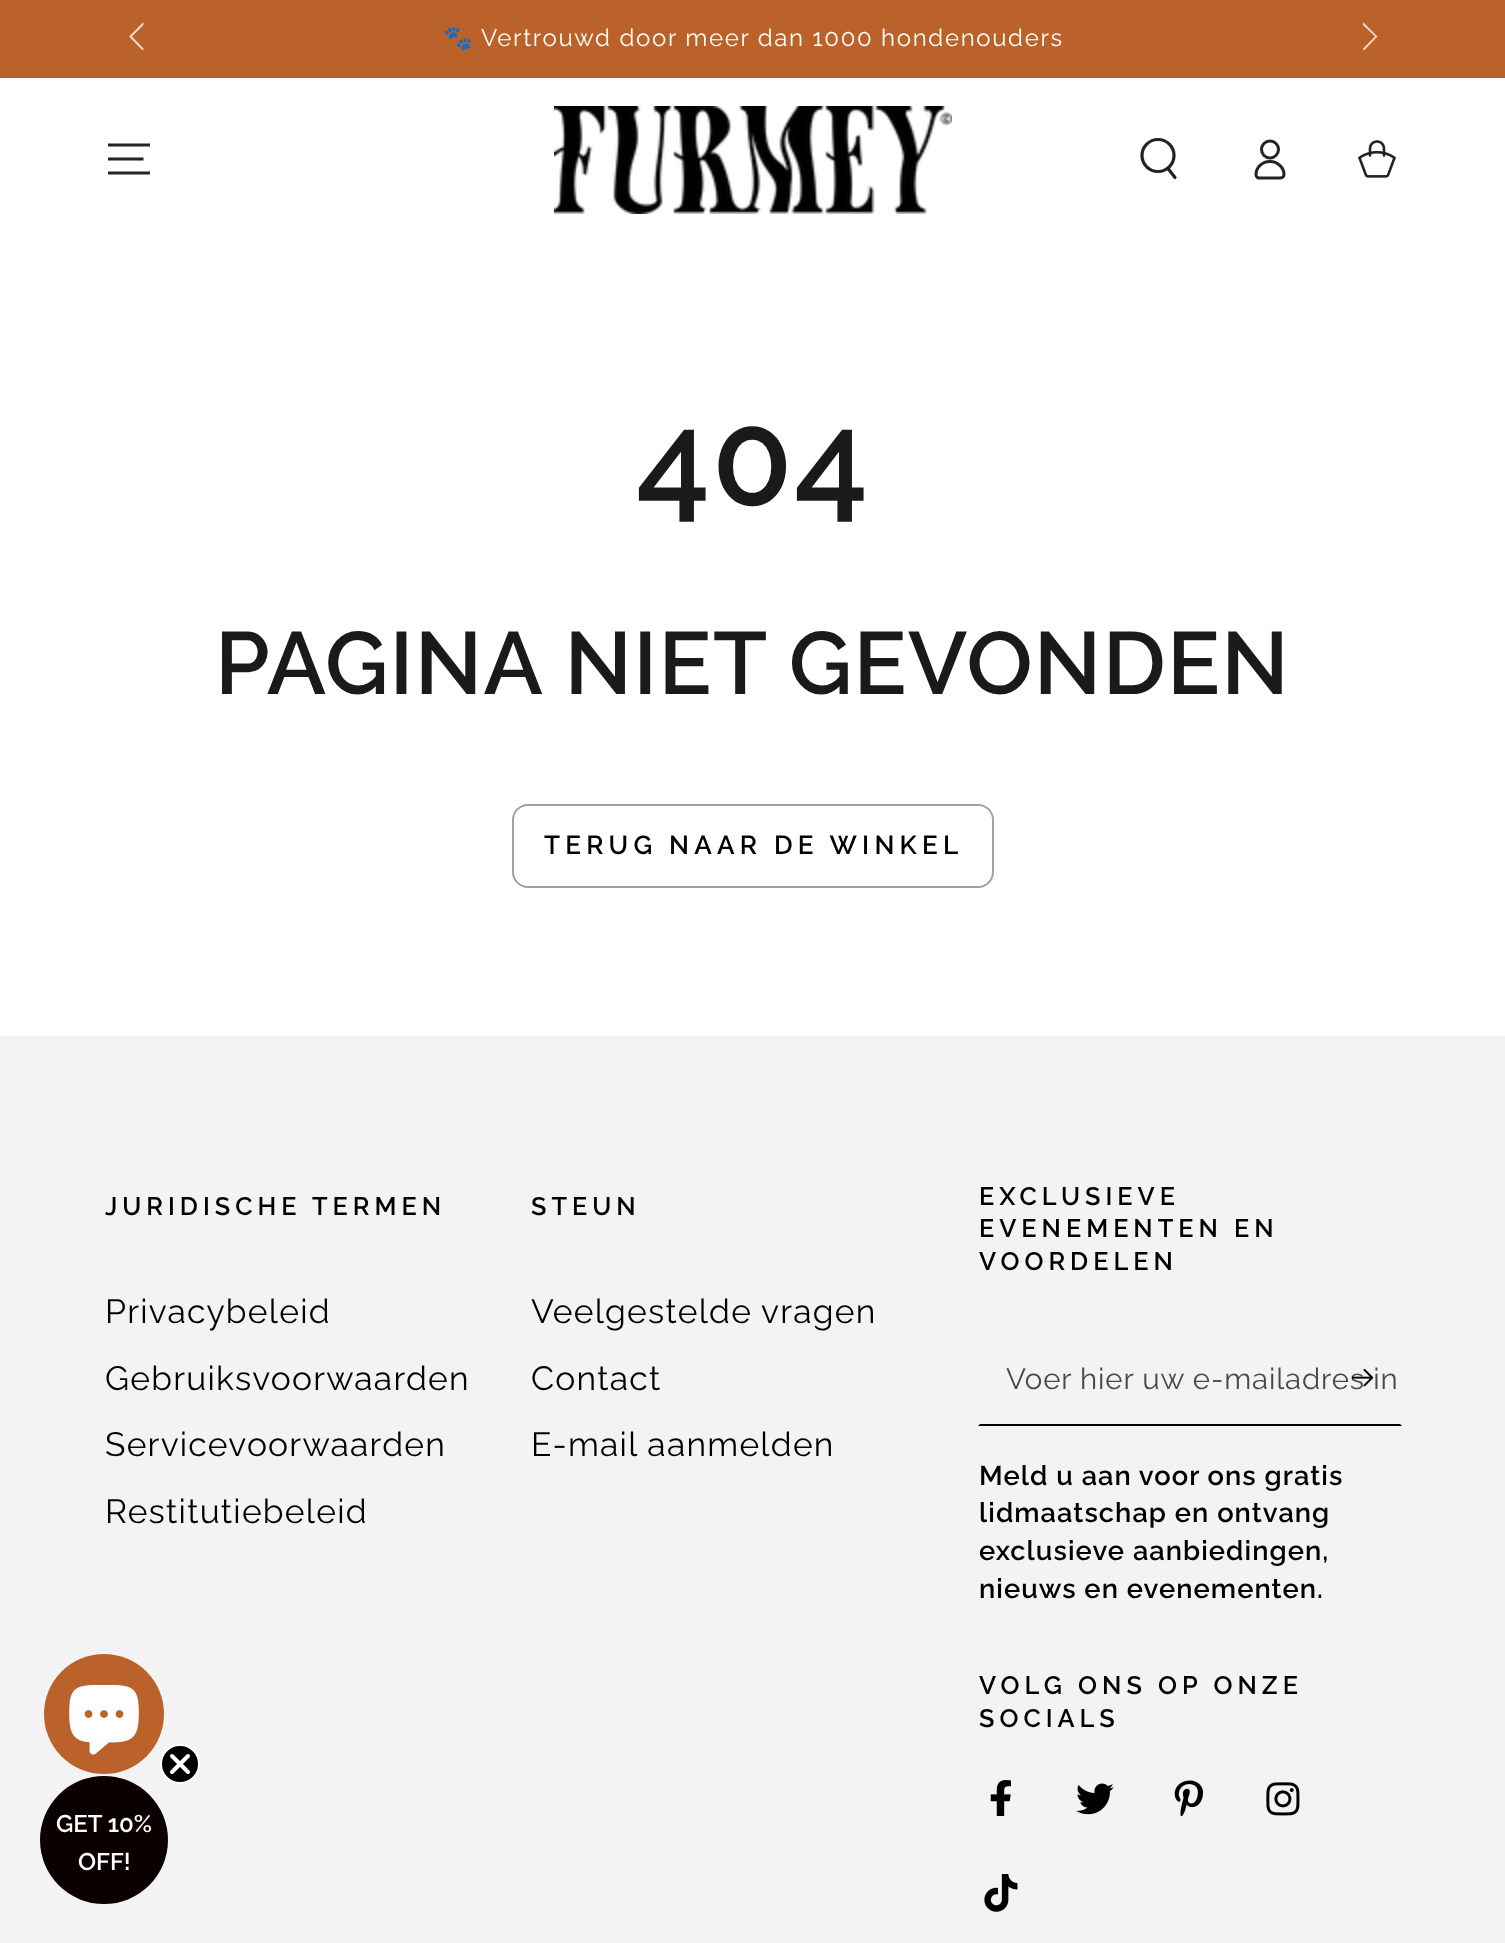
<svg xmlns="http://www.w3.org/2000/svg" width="1505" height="1943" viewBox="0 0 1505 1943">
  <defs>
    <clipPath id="clip1"><path d="M126 22h30v28H126z"/></clipPath>
    <clipPath id="clip2"><path d="M1350 22h30v28H1350z"/></clipPath>
  </defs>
  <rect width="100%" height="100%" fill="#fff"/>
  <path d="M0 1036h1505v907H0z" fill="#f3f3f3"/>
  <circle cx="104" cy="1840" r="64" fill="#0b0000"/>
  <circle cx="180" cy="1764" r="19" fill="#000" stroke="#fff" stroke-width="2"/>
  <circle cx="104" cy="1714" r="60" fill="#bb612a"/>
  <image x="69" y="1685" width="70" height="70" href="img/1.png"/>
  <path d="M0 0h1505v78H0z" fill="#bb612a"/>
  <g clip-path="url(#clip1)">
    <path d="M129 36.5L143.5 51.5V48.5L132 36.5L143.5 25V22Z" fill="#eed8ca" fill-rule="evenodd"/>
  </g>
  <g clip-path="url(#clip2)">
    <path d="M1377.5 36.5L1363 51.5V48.5L1375 36.5L1363 25V22Z" fill="#eed8ca" fill-rule="evenodd"/>
  </g>
  <path d="M108 173H150M108 159H143.5M108 145H150" fill="none" stroke="#212326" stroke-width="2.9"/>
  <image x="554" y="106" width="398" height="108" href="img/2.png"/>
  <circle cx="1158" cy="155.5" r="16" fill="none" stroke="#212326" stroke-width="3.2"/>
  <path d="M1168 168.5L1175 177.5" fill="none" stroke="#212326" stroke-width="3.2" stroke-linecap="round"/>
  <path d="M1270 161.5C1262 161.5 1256 167.5 1256 174.5C1256 176.5 1257.5 178 1259 178H1280.5C1282.5 178 1284 176.5 1284 174.5C1284 167.5 1277.5 161.5 1270 161.5Z" fill="none" stroke="#212326" stroke-width="3"/>
  <circle cx="1270" cy="149.5" r="8.5" fill="none" stroke="#212326" stroke-width="3"/>
  <image x="1358" y="140" width="38" height="38" href="img/3.png"/>
  <rect x="513" y="805" width="480" height="82" rx="15" fill="none" stroke="#a1a1a1" stroke-width="2"/>
  <path d="M1402 1426H978L980 1424H1400Z" fill="#000"/>
  <image x="990" y="1780" width="21" height="36" href="img/5.png"/>
  <image x="1076" y="1783" width="38" height="32" href="img/6.png"/>
  <image x="1174" y="1780" width="30" height="36" href="img/7.png"/>
  <image x="1266" y="1782" width="34" height="34" href="img/8.png"/>
  <image x="984" y="1874" width="34" height="38" href="img/9.png"/>
  <path d="M172 1756L188 1772M172 1772L188 1756Z" fill="none" stroke="#fff" stroke-width="4" stroke-linecap="round" stroke-linejoin="round"/>
  <text x="443" y="46" font-family="Noto Color Emoji" font-size="24" letter-spacing="1.65" fill="#fff">🐾</text>
  <text x="481" y="46" font-family="Raleway" font-size="24" font-weight="100" letter-spacing="1.65" fill="#fff">Vertrouwd door meer dan 1000 hondenouders</text>
  <text x="636" y="505" font-family="Raleway" font-size="132" font-weight="600" letter-spacing="1.3" fill="#1a1b18">404</text>
  <text x="215" y="694" font-family="Raleway" font-size="88" font-weight="600" letter-spacing="1.3" fill="#1a1b18">PAGINA NIET GEVONDEN</text>
  <text x="544" y="854" font-family="Raleway" font-size="26" font-weight="600" letter-spacing="5.25" fill="#000">TERUG NAAR DE WINKEL</text>
  <text x="105" y="1215" font-family="Raleway" font-size="25.25" font-weight="600" letter-spacing="5" fill="#000">JURIDISCHE TERMEN</text>
  <g font-family="Raleway" font-size="33.6" font-weight="100" letter-spacing="1.25" fill="#000">
    <text x="105" y="1323">Privacybeleid</text>
    <text x="105" y="1390">Gebruiksvoorwaarden</text>
    <text x="105" y="1456">Servicevoorwaarden</text>
    <text x="105" y="1523">Restitutiebeleid</text>
  </g>
  <text x="531" y="1215" font-family="Raleway" font-size="25.25" font-weight="600" letter-spacing="5" fill="#000">STEUN</text>
  <g font-family="Raleway" font-size="33.6" font-weight="100" letter-spacing="1.25" fill="#000">
    <text x="531" y="1323">Veelgestelde vragen</text>
    <text x="531" y="1390">Contact</text>
    <text x="531" y="1456">E-mail aanmelden</text>
  </g>
  <g font-family="Raleway" font-size="25.25" font-weight="600" letter-spacing="5" fill="#000">
    <text x="979" y="1205">EXCLUSIEVE</text>
    <text x="979" y="1237">EVENEMENTEN EN</text>
    <text x="979" y="1270">VOORDELEN</text>
  </g>
  <text x="1006" y="1389" font-family="Raleway" font-size="29.4" font-weight="100" letter-spacing="0.85" fill="#494949">Voer hier uw e-mailadres in</text>
  <image x="1352" y="1368" width="22" height="19" href="img/4.png"/>
  <g font-family="Raleway" font-size="27.25" font-weight="600" letter-spacing="1.05" fill="#000">
    <text x="979" y="1485">Meld u aan voor ons gratis</text>
    <text x="979" y="1522">lidmaatschap en ontvang</text>
    <text x="979" y="1560">exclusieve aanbiedingen,</text>
    <text x="979" y="1598">nieuws en evenementen.</text>
  </g>
  <g font-family="Raleway" font-size="25.25" font-weight="600" letter-spacing="5" fill="#000">
    <text x="979" y="1694">VOLG ONS OP ONZE</text>
    <text x="979" y="1727">SOCIALS</text>
  </g>
  <g font-family="Raleway" font-size="24" font-weight="600" fill="#fff">
    <text x="56" y="1832">GET 10%</text>
    <text x="78" y="1870">OFF!</text>
  </g>
</svg>
